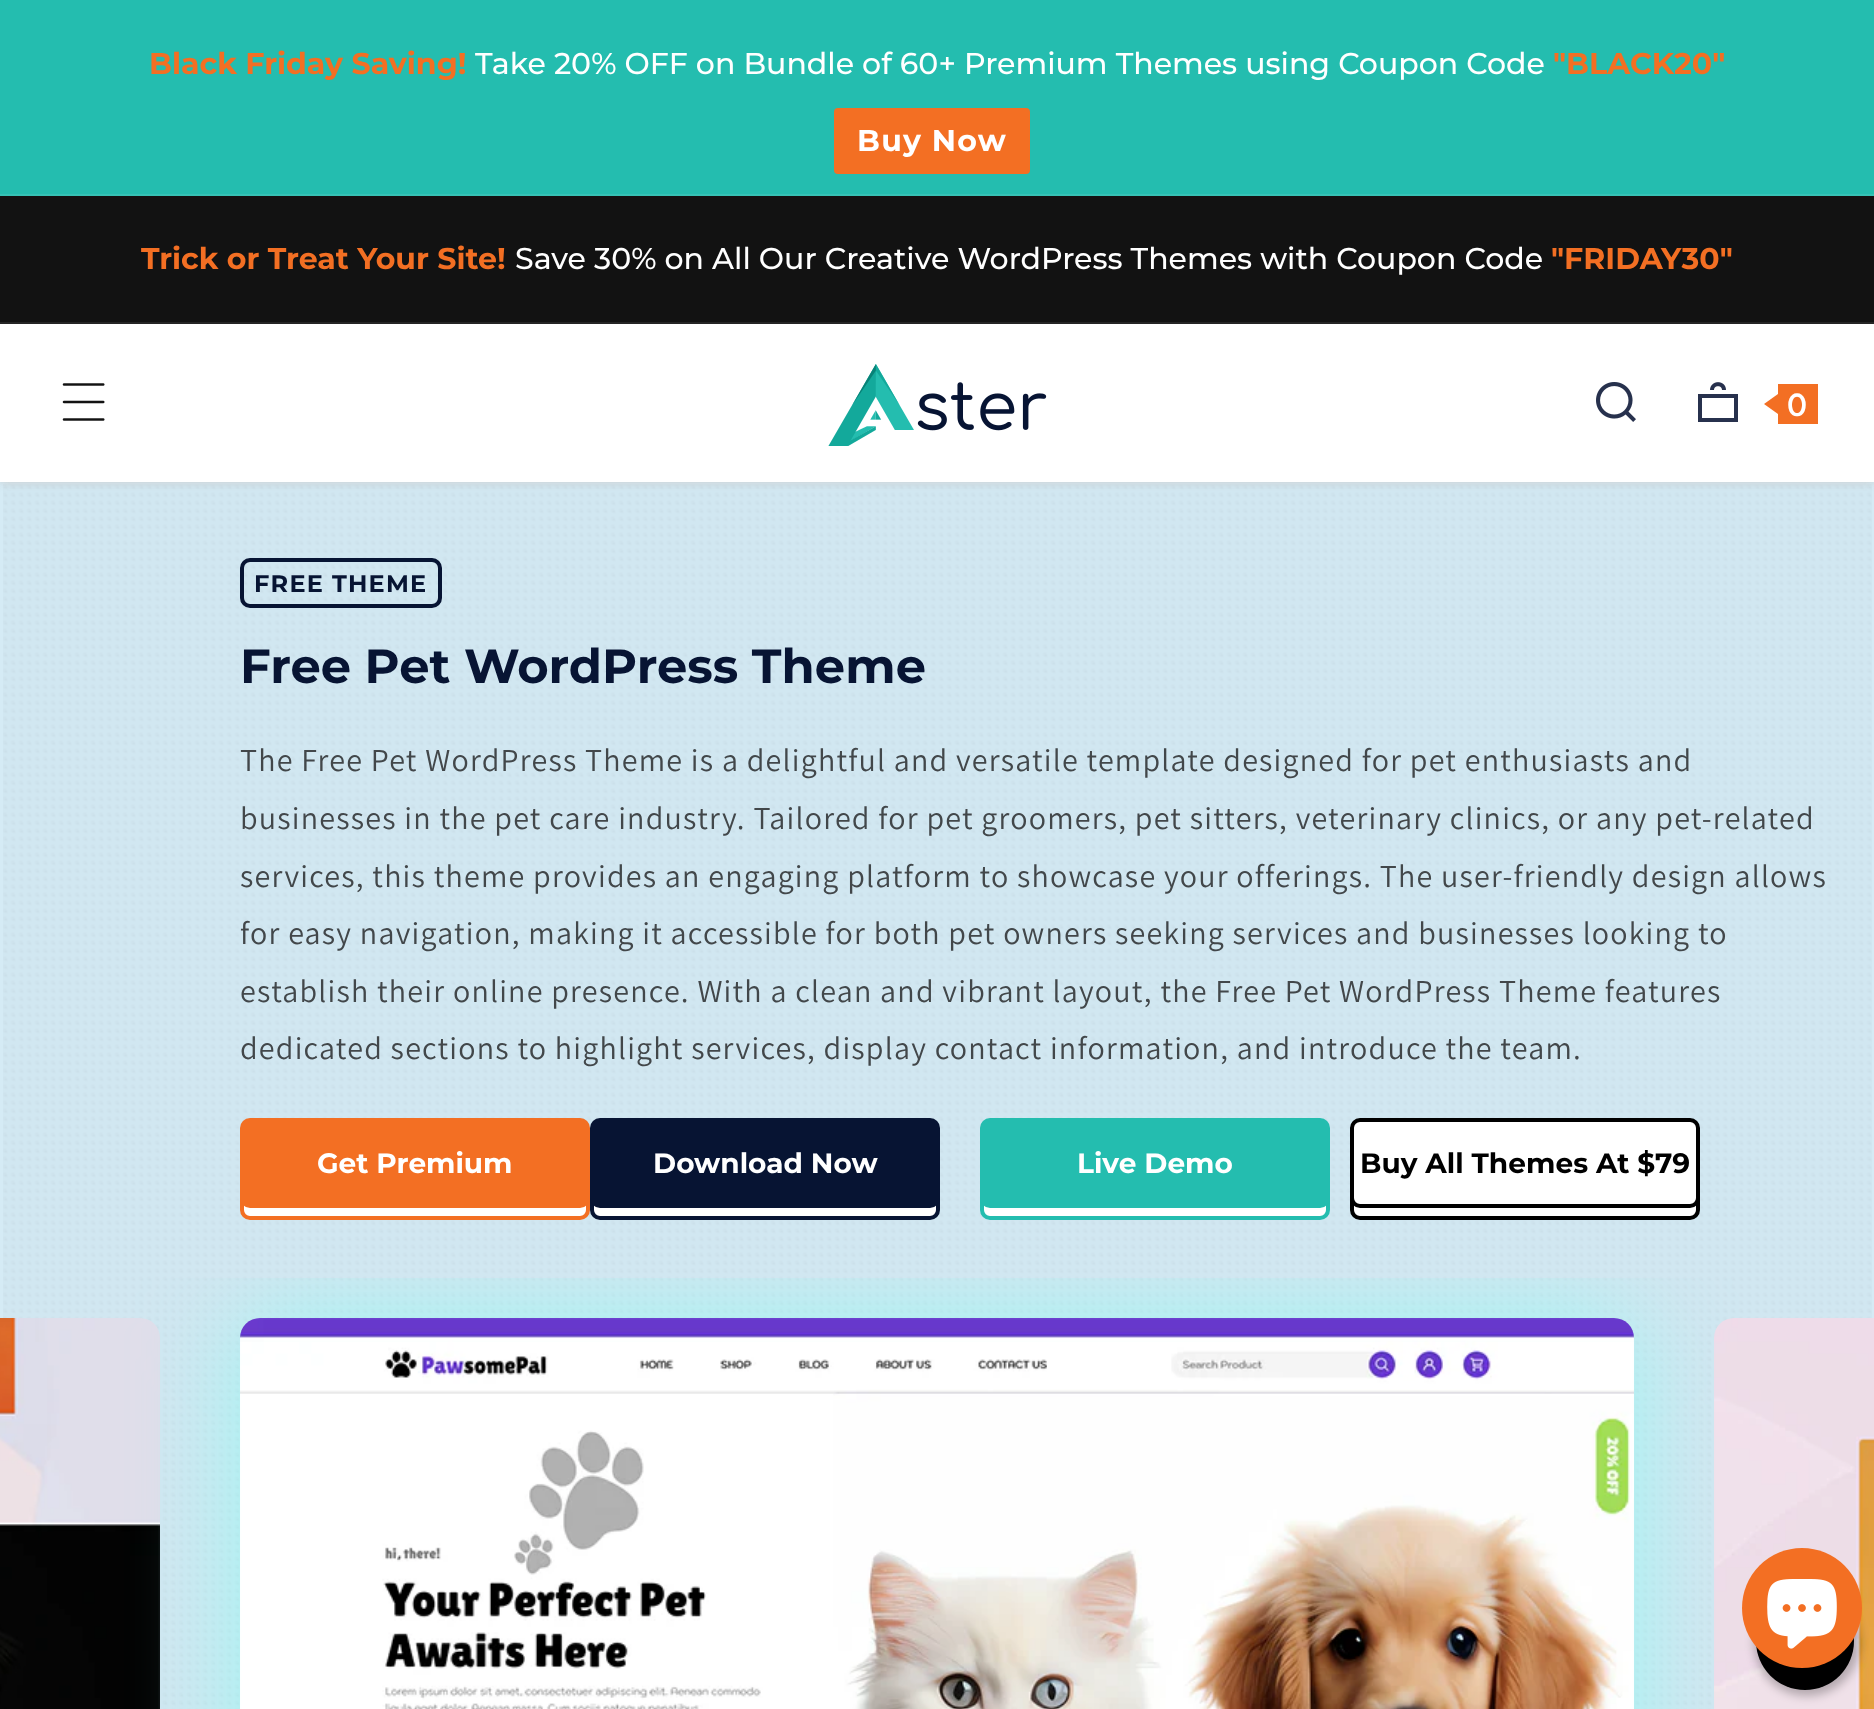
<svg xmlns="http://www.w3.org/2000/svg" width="1874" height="1709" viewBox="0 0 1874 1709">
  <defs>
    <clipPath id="clip1"><path d="M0 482h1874v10H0z"/></clipPath>
    <clipPath id="clip2"><path d="M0 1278h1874v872H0z"/></clipPath>
  </defs>
  <rect width="100%" height="100%" fill="#fff"/>
  <path d="M0 0h1874v194H0z" fill="#24bdaf"/>
  <path d="M0 194h1874v2H0z" fill="#36c2b5"/>
  <rect x="834" y="108" width="196" height="66" rx="4" fill="#f36f23"/>
  <path d="M0 482h1874v1227H0z" fill="#d5ebf5"/>
  <image x="3" y="484" width="1869" height="1225" href="img/5.png"/>
  <g clip-path="url(#clip1)">
    <path d="M0 324h1874v158H0z" fill="#c9c9c9" filter="blur(5px)"/>
  </g>
  <path d="M0 196h1874v126H0z" fill="#121212"/>
  <path d="M0 322h1874v2H0z" fill="#252525"/>
  <image x="62" y="383" width="43" height="38" href="img/1.png"/>
  <image x="828" y="364" width="219" height="82" href="img/2.png"/>
  <image x="1596" y="382" width="40" height="40" href="img/3.png"/>
  <image x="1698" y="382" width="40" height="40" href="img/4.png"/>
  <path d="M1778 384h40v40H1778z" fill="#f36f23"/>
  <path d="M1778 394V414L1764 404Z" fill="#f36f23"/>
  <rect x="242" y="560" width="198" height="46" rx="8" fill="none" stroke="#071433" stroke-width="4"/>
  <image x="0" y="1318" width="160" height="391" href="img/6.png"/>
  <g clip-path="url(#clip2)">
    <rect x="240" y="1320" width="1394" height="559" rx="20" fill="#7ffff4a1" filter="blur(50px)"/>
  </g>
  <rect x="242" y="1132" width="346" height="86" rx="8" fill="#fff" stroke="#f36f23" stroke-width="4"/>
  <rect x="240" y="1118" width="350" height="90" rx="10" fill="#f36f23"/>
  <rect x="592" y="1132" width="346" height="86" rx="8" fill="#fff" stroke="#071433" stroke-width="4"/>
  <rect x="590" y="1118" width="350" height="90" rx="10" fill="#071433"/>
  <rect x="982" y="1132" width="346" height="86" rx="8" fill="#fff" stroke="#24bdaf" stroke-width="4"/>
  <rect x="980" y="1118" width="350" height="90" rx="10" fill="#24bdaf"/>
  <rect x="1352" y="1132" width="346" height="86" rx="8" fill="#fff" stroke="#000" stroke-width="4"/>
  <rect x="1352" y="1120" width="346" height="86" rx="8" fill="#fff" stroke="#000" stroke-width="4"/>
  <image x="240" y="1318" width="1394" height="391" href="img/7.png"/>
  <image x="1714" y="1318" width="160" height="391" href="img/8.png"/>
  <rect x="1754" y="1590" width="106" height="106" rx="53" fill="#00000040" filter="blur(5px)"/>
  <circle cx="1805" cy="1641" r="49" fill="#000"/>
  <image x="1783" y="1664" width="1" height="1" href="img/10.png"/>
  <circle cx="1802" cy="1608" r="60" fill="#f36f23"/>
  <image x="1767" y="1579" width="70" height="70" href="img/9.png"/>
  <text x="149" y="74" font-family="Montserrat" font-size="30" font-weight="bold" fill="#f36f23">Black Friday Saving!</text>
  <text x="475" y="74" font-family="Montserrat" font-size="30" font-weight="500" fill="#fff">Take 20% OFF on Bundle of 60+ Premium Themes using Coupon Code</text>
  <text x="1553" y="74" font-family="Montserrat" font-size="30" font-weight="bold" fill="#f36f23">"BLACK20"</text>
  <text x="857" y="151" font-family="Montserrat" font-size="30" font-weight="bold" letter-spacing="1.2" fill="#fff">Buy Now</text>
  <text x="141" y="269" font-family="Montserrat" font-size="30" font-weight="bold" fill="#f36f23">Trick or Treat Your Site!</text>
  <text x="515" y="269" font-family="Montserrat" font-size="30" font-weight="500" fill="#fff">Save 30% on All Our Creative WordPress Themes with Coupon Code</text>
  <text x="1551" y="269" font-family="Montserrat" font-size="30" font-weight="bold" fill="#f36f23">"FRIDAY30"</text>
  <text x="1787" y="416" font-family="Jost" font-size="32" font-weight="500" letter-spacing="1.2" fill="#fff">0</text>
  <text x="254" y="592" font-family="Montserrat" font-size="24" font-weight="bold" letter-spacing="1.2" fill="#071433">FREE THEME</text>
  <text x="240" y="683" font-family="Montserrat" font-size="48" font-weight="bold" fill="#071433">Free Pet WordPress Theme</text>
  <g font-family="Assistant" font-size="32" letter-spacing="1.2" fill="#42474a">
    <text x="240" y="771">The Free Pet WordPress Theme is a delightful and versatile template designed for pet enthusiasts and</text>
    <text x="240" y="829">businesses in the pet care industry. Tailored for pet groomers, pet sitters, veterinary clinics, or any pet-related</text>
    <text x="240" y="887">services, this theme provides an engaging platform to showcase your offerings. The user-friendly design allows</text>
    <text x="240" y="944">for easy navigation, making it accessible for both pet owners seeking services and businesses looking to</text>
    <text x="240" y="1002">establish their online presence. With a clean and vibrant layout, the Free Pet WordPress Theme features</text>
    <text x="240" y="1059">dedicated sections to highlight services, display contact information, and introduce the team.</text>
  </g>
  <g font-family="Montserrat" font-size="28" font-weight="bold" fill="#fff">
    <text x="317" y="1173">Get Premium</text>
    <text x="653" y="1173">Download Now</text>
    <text x="1077" y="1173">Live Demo</text>
  </g>
  <text x="1360" y="1173" font-family="Montserrat" font-size="28" font-weight="bold" fill="#000">Buy All Themes At $79</text>
</svg>
